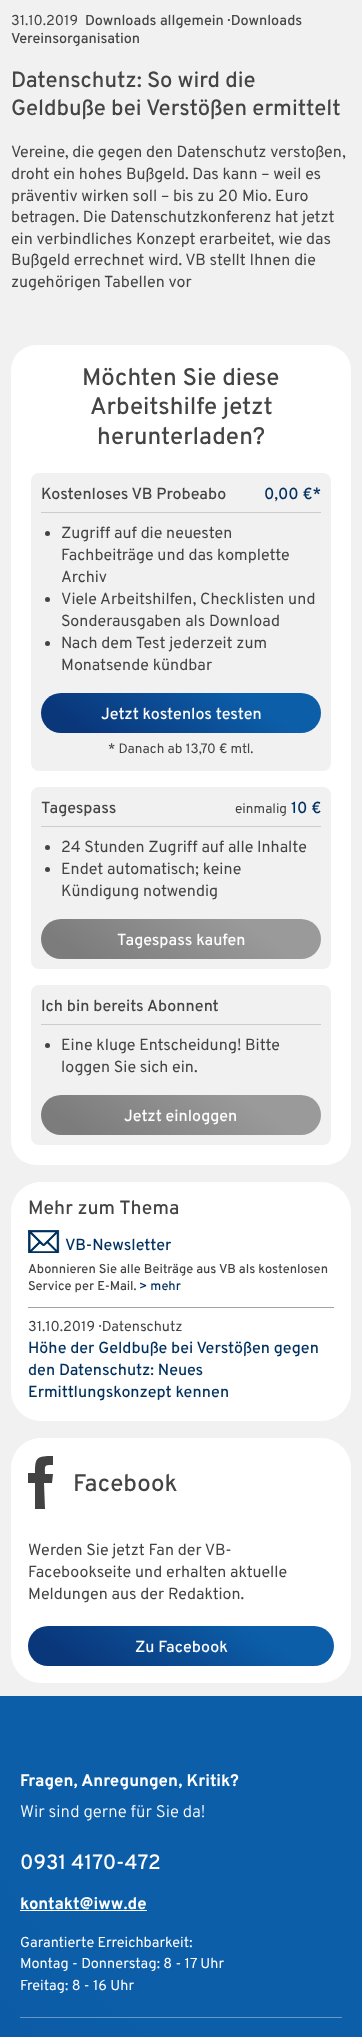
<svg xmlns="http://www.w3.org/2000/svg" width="362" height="2037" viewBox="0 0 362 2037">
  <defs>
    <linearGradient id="g1" gradientUnits="userSpaceOnUse" x1="239" y1="633" x2="123" y2="793"><stop offset="0.24" stop-color="#0c5ea9"/><stop offset="0.87" stop-color="#0a367a"/></linearGradient>
    <linearGradient id="g2" gradientUnits="userSpaceOnUse" x1="239" y1="859" x2="123" y2="1019"><stop offset="0.24" stop-color="#9a9a9a"/><stop offset="0.87" stop-color="#7c7c7c"/></linearGradient>
    <linearGradient id="g3" gradientUnits="userSpaceOnUse" x1="239" y1="1035" x2="123" y2="1195"><stop offset="0.24" stop-color="#9a9a9a"/><stop offset="0.87" stop-color="#7c7c7c"/></linearGradient>
    <linearGradient id="g4" gradientUnits="userSpaceOnUse" x1="243" y1="1560" x2="119" y2="1732"><stop offset="0.24" stop-color="#0c5ea9"/><stop offset="0.87" stop-color="#0a367a"/></linearGradient>
    <radialGradient id="g5" gradientUnits="userSpaceOnUse" cx="362" cy="1696" r="1575"><stop offset="0" stop-color="#0c5ea9"/><stop offset="0.25" stop-color="#0c5ea9"/><stop offset="1" stop-color="#0a367a"/></radialGradient>
    <radialGradient id="g6" gradientUnits="userSpaceOnUse" cx="362" cy="1696" r="1575"><stop offset="0" stop-color="#6398c8"/><stop offset="0.25" stop-color="#6398c8"/><stop offset="1" stop-color="#627eaa"/></radialGradient>
  </defs>
  <rect width="100%" height="100%" fill="#f1f1f1"/>
  <rect x="11" y="345" width="340" height="820" rx="25" fill="#fff"/>
  <rect x="31" y="473" width="300" height="298" rx="8" fill="#f1f1f1"/>
  <path d="M41 512h280v1H41z" fill="#ccc"/>
  <circle cx="47.5" cy="533.5" r="2.5" fill="#444"/>
  <circle cx="47.5" cy="599.5" r="2.5" fill="#444"/>
  <circle cx="47.5" cy="643.5" r="2.5" fill="#444"/>
  <rect x="41" y="693" width="280" height="40" rx="20" fill="url(#g1)"/>
  <rect x="31" y="787" width="300" height="182" rx="8" fill="#f1f1f1"/>
  <path d="M41 826h280v1H41z" fill="#ccc"/>
  <circle cx="47.5" cy="847.5" r="2.5" fill="#444"/>
  <circle cx="47.5" cy="869.5" r="2.5" fill="#444"/>
  <rect x="41" y="919" width="280" height="40" rx="20" fill="url(#g2)"/>
  <rect x="31" y="985" width="300" height="160" rx="8" fill="#f1f1f1"/>
  <path d="M41 1024h280v1H41z" fill="#ccc"/>
  <circle cx="47.5" cy="1045.5" r="2.5" fill="#444"/>
  <rect x="41" y="1095" width="280" height="40" rx="20" fill="url(#g3)"/>
  <rect x="11" y="1182" width="340" height="239" rx="30" fill="#fff"/>
  <path d="M28 1307h306v1H28z" fill="#a1a1a1"/>
  <image x="28" y="1230" width="32" height="23" href="img/1.png"/>
  <rect x="11" y="1438" width="340" height="245" rx="30" fill="#fff"/>
  <path d="M45 1509H35V1483H28V1473H35C35 1457 37 1456 53 1456V1465C44 1465 45 1465 45 1474H53L52 1483H44Z" fill="#424242"/>
  <rect x="28" y="1626" width="306" height="40" rx="20" fill="url(#g4)"/>
  <path d="M0 1696h362v341H0z" fill="url(#g5)"/>
  <path d="M20 2017h322v1H20z" fill="url(#g6)"/>
  <path d="M20 1910h127v1H20z" fill="#fff"/>
  <text x="11" y="25" font-family="Overpass" font-size="14.4" fill="#444">31.10.2019</text>
  <g font-family="Overpass" font-size="14.4" font-weight="500" fill="#444">
    <text x="85" y="25">Downloads allgemein · Downloads</text>
    <text x="11" y="43">Vereinsorganisation</text>
  </g>
  <g font-family="Overpass" font-size="22" font-weight="500" fill="#444">
    <text x="11" y="87">Datenschutz: So wird die</text>
    <text x="11" y="115">Geldbuße bei Verstößen ermittelt</text>
  </g>
  <g font-family="Overpass" font-size="16" fill="#444">
    <text x="11" y="157">Vereine, die gegen den Datenschutz verstoßen,</text>
    <text x="11" y="179">droht ein hohes Bußgeld. Das kann – weil es</text>
    <text x="11" y="201">präventiv wirken soll – bis zu 20 Mio. Euro</text>
    <text x="11" y="222">betragen. Die Datenschutzkonferenz hat jetzt</text>
    <text x="11" y="244">ein verbindliches Konzept erarbeitet, wie das</text>
    <text x="11" y="265">Bußgeld errechnet wird. VB stellt Ihnen die</text>
    <text x="11" y="287">zugehörigen Tabellen vor</text>
  </g>
  <g font-family="Overpass" font-size="24" font-weight="500" fill="#444">
    <text x="82" y="385">Möchten Sie diese</text>
    <text x="90" y="414">Arbeitshilfe jetzt</text>
    <text x="97" y="444">herunterladen?</text>
  </g>
  <text x="41" y="499" font-family="Overpass" font-size="16" font-weight="500" fill="#444">Kostenloses VB Probeabo</text>
  <text x="264" y="499" font-family="Overpass" font-size="16" font-weight="500" fill="#00305e">0,00 €*</text>
  <g font-family="Overpass" font-size="16" fill="#444">
    <text x="61" y="538">Zugriff auf die neuesten</text>
    <text x="61" y="560">Fachbeiträge und das komplette</text>
    <text x="61" y="582">Archiv</text>
    <text x="61" y="604">Viele Arbeitshilfen, Checklisten und</text>
    <text x="61" y="626">Sonderausgaben als Download</text>
    <text x="61" y="648">Nach dem Test jederzeit zum</text>
    <text x="61" y="670">Monatsende kündbar</text>
  </g>
  <text x="101" y="719" font-family="Overpass" font-size="16" font-weight="500" fill="#fff">Jetzt kostenlos testen</text>
  <text x="108" y="753" font-family="Overpass" font-size="13.6" fill="#444">* Danach ab 13,70 € mtl.</text>
  <text x="41" y="813" font-family="Overpass" font-size="16" font-weight="500" fill="#444">Tagespass</text>
  <text x="235" y="813" font-family="Overpass" font-size="13.6" fill="#444">einmalig</text>
  <text x="291" y="813" font-family="Overpass" font-size="16" font-weight="500" fill="#00305e">10 €</text>
  <g font-family="Overpass" font-size="16" fill="#444">
    <text x="61" y="852">24 Stunden Zugriff auf alle Inhalte</text>
    <text x="61" y="874">Endet automatisch; keine</text>
    <text x="61" y="896">Kündigung notwendig</text>
  </g>
  <text x="117" y="945" font-family="Overpass" font-size="16" font-weight="500" fill="#fff">Tagespass kaufen</text>
  <text x="41" y="1011" font-family="Overpass" font-size="16" font-weight="500" fill="#444">Ich bin bereits Abonnent</text>
  <g font-family="Overpass" font-size="16" fill="#444">
    <text x="61" y="1050">Eine kluge Entscheidung! Bitte</text>
    <text x="61" y="1072">loggen Sie sich ein.</text>
  </g>
  <text x="124" y="1121" font-family="Overpass" font-size="16" font-weight="500" fill="#fff">Jetzt einloggen</text>
  <text x="28" y="1214" font-family="Overpass" font-size="19.25" font-weight="500" fill="#444">Mehr zum Thema</text>
  <text x="65" y="1250" font-family="Overpass" font-size="16" font-weight="500" fill="#00305e">VB-Newsletter</text>
  <g font-family="Overpass" font-size="12.8" font-weight="500" fill="#444">
    <text x="28" y="1273">Abonnieren Sie alle Beiträge aus VB als kostenlosen</text>
    <text x="28" y="1290">Service per E-Mail.</text>
  </g>
  <text x="139" y="1290" font-family="Overpass" font-size="12.8" font-weight="500" fill="#00305e">&gt; mehr</text>
  <text x="28" y="1331" font-family="Overpass" font-size="14.4" fill="#444">31.10.2019 · Datenschutz</text>
  <g font-family="Overpass" font-size="16" font-weight="500" fill="#00305e">
    <text x="28" y="1353">Höhe der Geldbuße bei Verstößen gegen</text>
    <text x="28" y="1375">den Datenschutz: Neues</text>
    <text x="28" y="1397">Ermittlungskonzept kennen</text>
  </g>
  <text x="73" y="1491" font-family="Overpass" font-size="24" font-weight="500" fill="#444">Facebook</text>
  <g font-family="Overpass" font-size="16" fill="#444">
    <text x="28" y="1555">Werden Sie jetzt Fan der VB-</text>
    <text x="28" y="1577">Facebookseite und erhalten aktuelle</text>
    <text x="28" y="1599">Meldungen aus der Redaktion.</text>
  </g>
  <text x="135" y="1652" font-family="Overpass" font-size="16" font-weight="500" fill="#fff">Zu Facebook</text>
  <text x="20" y="1786" font-family="Overpass" font-size="16.75" font-weight="bold" fill="#fff">Fragen, Anregungen, Kritik?</text>
  <text x="20" y="1817" font-family="Overpass" font-size="16.75" font-weight="300" fill="#fff">Wir sind gerne für Sie da!</text>
  <text x="20" y="1869" font-family="Overpass" font-size="20.75" font-weight="500" fill="#fff">0931 4170-472</text>
  <text x="20" y="1909" font-family="Overpass" font-size="16.75" font-weight="bold" fill="#fff">kontakt@iww.de</text>
  <g font-family="Overpass" font-size="14.4" fill="#fff">
    <text x="20" y="1947">Garantierte Erreichbarkeit:</text>
    <text x="20" y="1968">Montag - Donnerstag: 8 - 17 Uhr</text>
    <text x="20" y="1990">Freitag: 8 - 16 Uhr</text>
  </g>
</svg>
